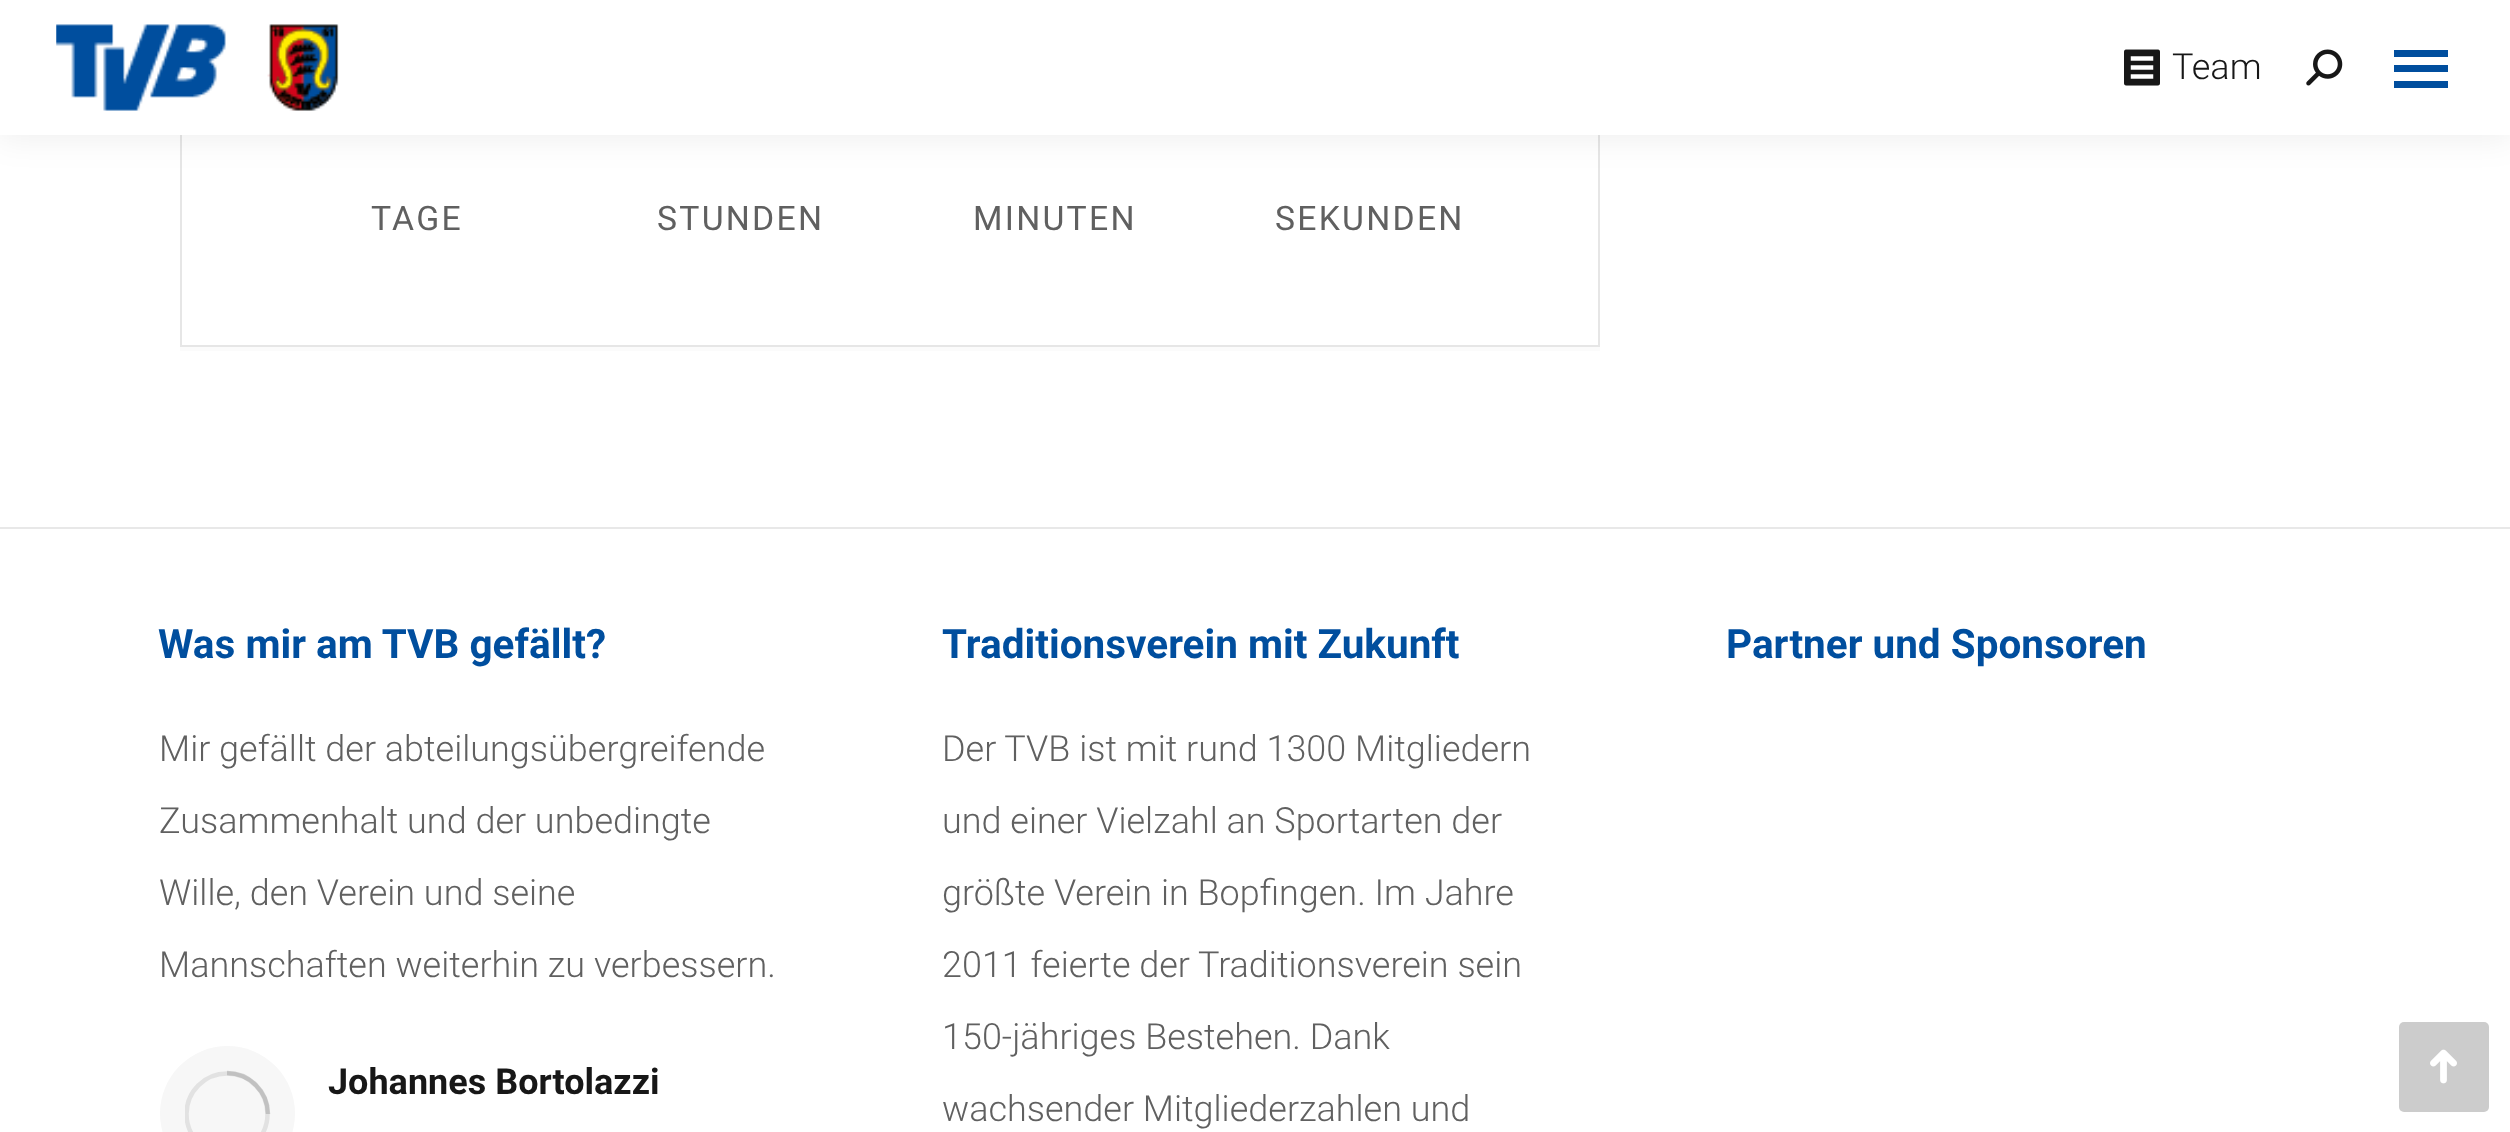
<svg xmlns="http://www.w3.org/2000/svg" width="2510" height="1132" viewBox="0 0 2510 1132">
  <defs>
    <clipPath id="clip1"><path d="M185 1071h85v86H185z"/></clipPath>
  </defs>
  <rect width="100%" height="100%" fill="#fff"/>
  <path d="M180 346V351H1600V-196V346Z" fill="#fbfbfb"/>
  <path d="M181 -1h1418v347H181z" fill="none" stroke="#e6e6e6" stroke-width="2"/>
  <path d="M-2 -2h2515v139H-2z" fill="#00000012" filter="blur(17px)"/>
  <path d="M0 0h2510v135H0z" fill="#fff"/>
  <image x="56" y="24" width="283" height="87" href="img/1.png"/>
  <image x="2124" y="49" width="36" height="37" href="img/2.png"/>
  <image x="2306" y="49" width="37" height="37" href="img/3.png"/>
  <path d="M2394 50h54v7H2394z" fill="#004e9e"/>
  <path d="M2394 65h54v7H2394z" fill="#004e9e"/>
  <path d="M2394 81h54v7H2394z" fill="#004e9e"/>
  <path d="M0 527h2510v2H0z" fill="#e8e8e8"/>
  <circle cx="227.5" cy="1113.5" r="67.5" fill="#f7f7f7"/>
  <g clip-path="url(#clip1)">
    <circle cx="227" cy="1114" r="40.5" fill="none" stroke="#e2e2e2" stroke-width="4.5"/>
  </g>
  <path d="M268 1114C268 1091.5 249.5 1073 227 1073" fill="none" stroke="#60606040" stroke-width="4.5"/>
  <rect x="2399" y="1022" width="90" height="90" rx="5" fill="#ccc"/>
  <image x="2430" y="1049" width="27" height="35" href="img/4.png"/>
  <text x="2172" y="79" font-family="Roboto" font-size="36" font-weight="300" fill="#171717">Team</text>
  <g font-family="Roboto" font-size="33.75" letter-spacing="2.25" fill="#606060">
    <text x="371" y="230">TAGE</text>
    <text x="657" y="230">STUNDEN</text>
    <text x="973" y="230">MINUTEN</text>
    <text x="1275" y="230">SEKUNDEN</text>
  </g>
  <text x="158" y="658" font-family="Roboto" font-size="40.5" font-weight="bold" fill="#004e9e">Was mir am TVB gefällt?</text>
  <g font-family="Roboto" font-size="36" font-weight="300" fill="#606060">
    <text x="159" y="761">Mir gefällt der abteilungsübergreifende</text>
    <text x="159" y="833">Zusammenhalt und der unbedingte</text>
    <text x="159" y="905">Wille, den Verein und seine</text>
    <text x="159" y="977">Mannschaften weiterhin zu verbessern.</text>
  </g>
  <text x="328" y="1094" font-family="Roboto" font-size="36" font-weight="bold" fill="#171717">Johannes Bortolazzi</text>
  <text x="942" y="658" font-family="Roboto" font-size="40.5" font-weight="bold" fill="#004e9e">Traditionsverein mit Zukunft</text>
  <g font-family="Roboto" font-size="36" font-weight="300" fill="#606060">
    <text x="942" y="761">Der TVB ist mit rund 1300 Mitgliedern</text>
    <text x="942" y="833">und einer Vielzahl an Sportarten der</text>
    <text x="942" y="905">größte Verein in Bopfingen. Im Jahre</text>
    <text x="942" y="977">2011 feierte der Traditionsverein sein</text>
    <text x="942" y="1049">150-jähriges Bestehen. Dank</text>
    <text x="942" y="1121">wachsender Mitgliederzahlen und</text>
  </g>
  <text x="1726" y="658" font-family="Roboto" font-size="40.5" font-weight="bold" fill="#004e9e">Partner und Sponsoren</text>
</svg>
